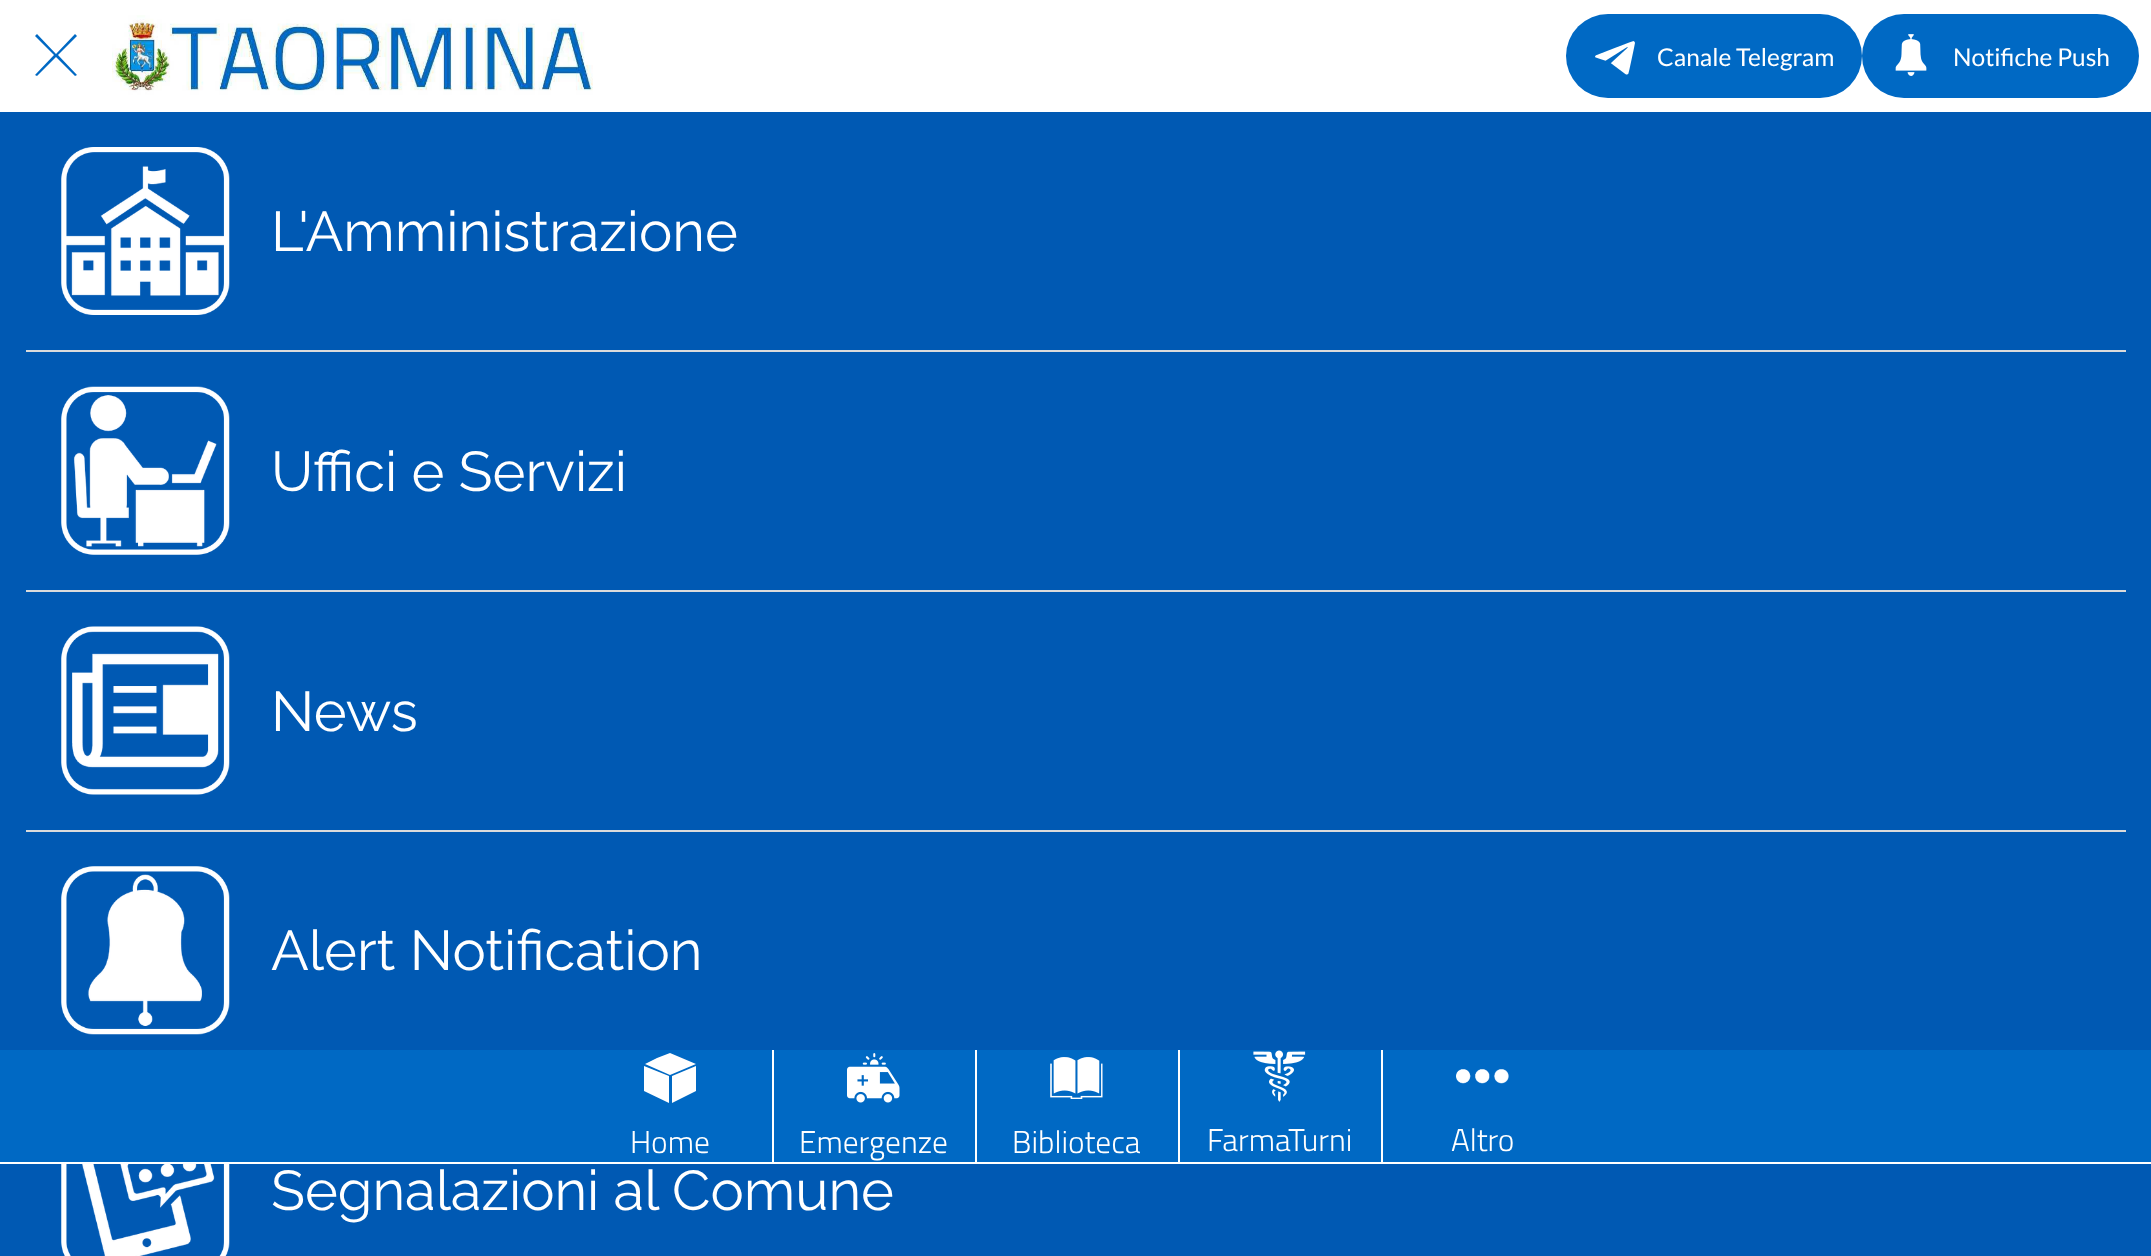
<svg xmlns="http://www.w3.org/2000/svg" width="2151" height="1256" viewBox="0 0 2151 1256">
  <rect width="100%" height="100%" fill="#0059b3"/>
  <path d="M26 350h2100v2H26z" fill="#dbdbdb"/>
  <image x="61" y="147" width="169" height="168" href="img/1.png"/>
  <path d="M26 590h2100v2H26z" fill="#dbdbdb"/>
  <image x="61" y="386" width="169" height="169" href="img/2.png"/>
  <path d="M26 830h2100v2H26z" fill="#dbdbdb"/>
  <image x="61" y="626" width="169" height="169" href="img/3.png"/>
  <image x="61" y="866" width="169" height="169" href="img/4.png"/>
  <image x="61" y="1164" width="169" height="92" href="img/5.png"/>
  <path d="M0 0h2151v112H0z" fill="#fff"/>
  <path d="M77 36L75 34L56 54L37 34L35 36L54 55L35 75L37 76L56 57L75 76L77 75L58 55Z" fill="#0069c4"/>
  <image x="112" y="15" width="481" height="80" href="img/6.png"/>
  <rect x="1566" y="14" width="296" height="84" rx="42" fill="#0069c4"/>
  <image x="1595" y="41" width="40" height="34" href="img/7.png"/>
  <rect x="1862" y="14" width="277" height="84" rx="42" fill="#0069c4"/>
  <image x="1895" y="34" width="32" height="42" href="img/8.png"/>
  <path d="M0 1050h2151v112H0z" fill="#0069c4"/>
  <path d="M0 1162h2151v2H0z" fill="#fff"/>
  <path d="M772 1050h2v112H772z" fill="#fff"/>
  <path d="M657 1058L645 1064L670 1075L696 1064L670 1053ZM644 1078V1091L669 1103V1076L644 1066ZM684 1071L672 1076V1103L696 1091V1066Z" fill="#fff"/>
  <path d="M975 1050h2v112H975z" fill="#fff"/>
  <image x="847" y="1053" width="53" height="50" href="img/9.png"/>
  <path d="M1178 1050h2v112H1178z" fill="#fff"/>
  <image x="1050" y="1057" width="53" height="42" href="img/10.png"/>
  <path d="M1381 1050h2v112H1381z" fill="#fff"/>
  <image x="1253" y="1050" width="53" height="52" href="img/11.png"/>
  <image x="1456" y="1069" width="53" height="15" href="img/12.png"/>
  <g font-family="Raleway" font-size="56" fill="#fff">
    <text x="271" y="251">L'Amministrazione</text>
    <text x="271" y="491">Uffici e Servizi</text>
    <text x="271" y="731">News</text>
    <text x="271" y="970">Alert Notification</text>
    <text x="271" y="1210">Segnalazioni al Comune</text>
  </g>
  <g font-family="Lato" font-size="24.5" fill="#fff">
    <text x="1657" y="66">Canale Telegram</text>
    <text x="1953" y="66">Notifiche Push</text>
  </g>
  <g font-family="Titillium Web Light" font-size="31.5" font-weight="300" fill="#fff">
    <text x="630" y="1153">Home</text>
    <text x="799" y="1153">Emergenze</text>
    <text x="1012" y="1153">Biblioteca</text>
    <text x="1207" y="1151">FarmaTurni</text>
    <text x="1451" y="1151">Altro</text>
  </g>
</svg>
